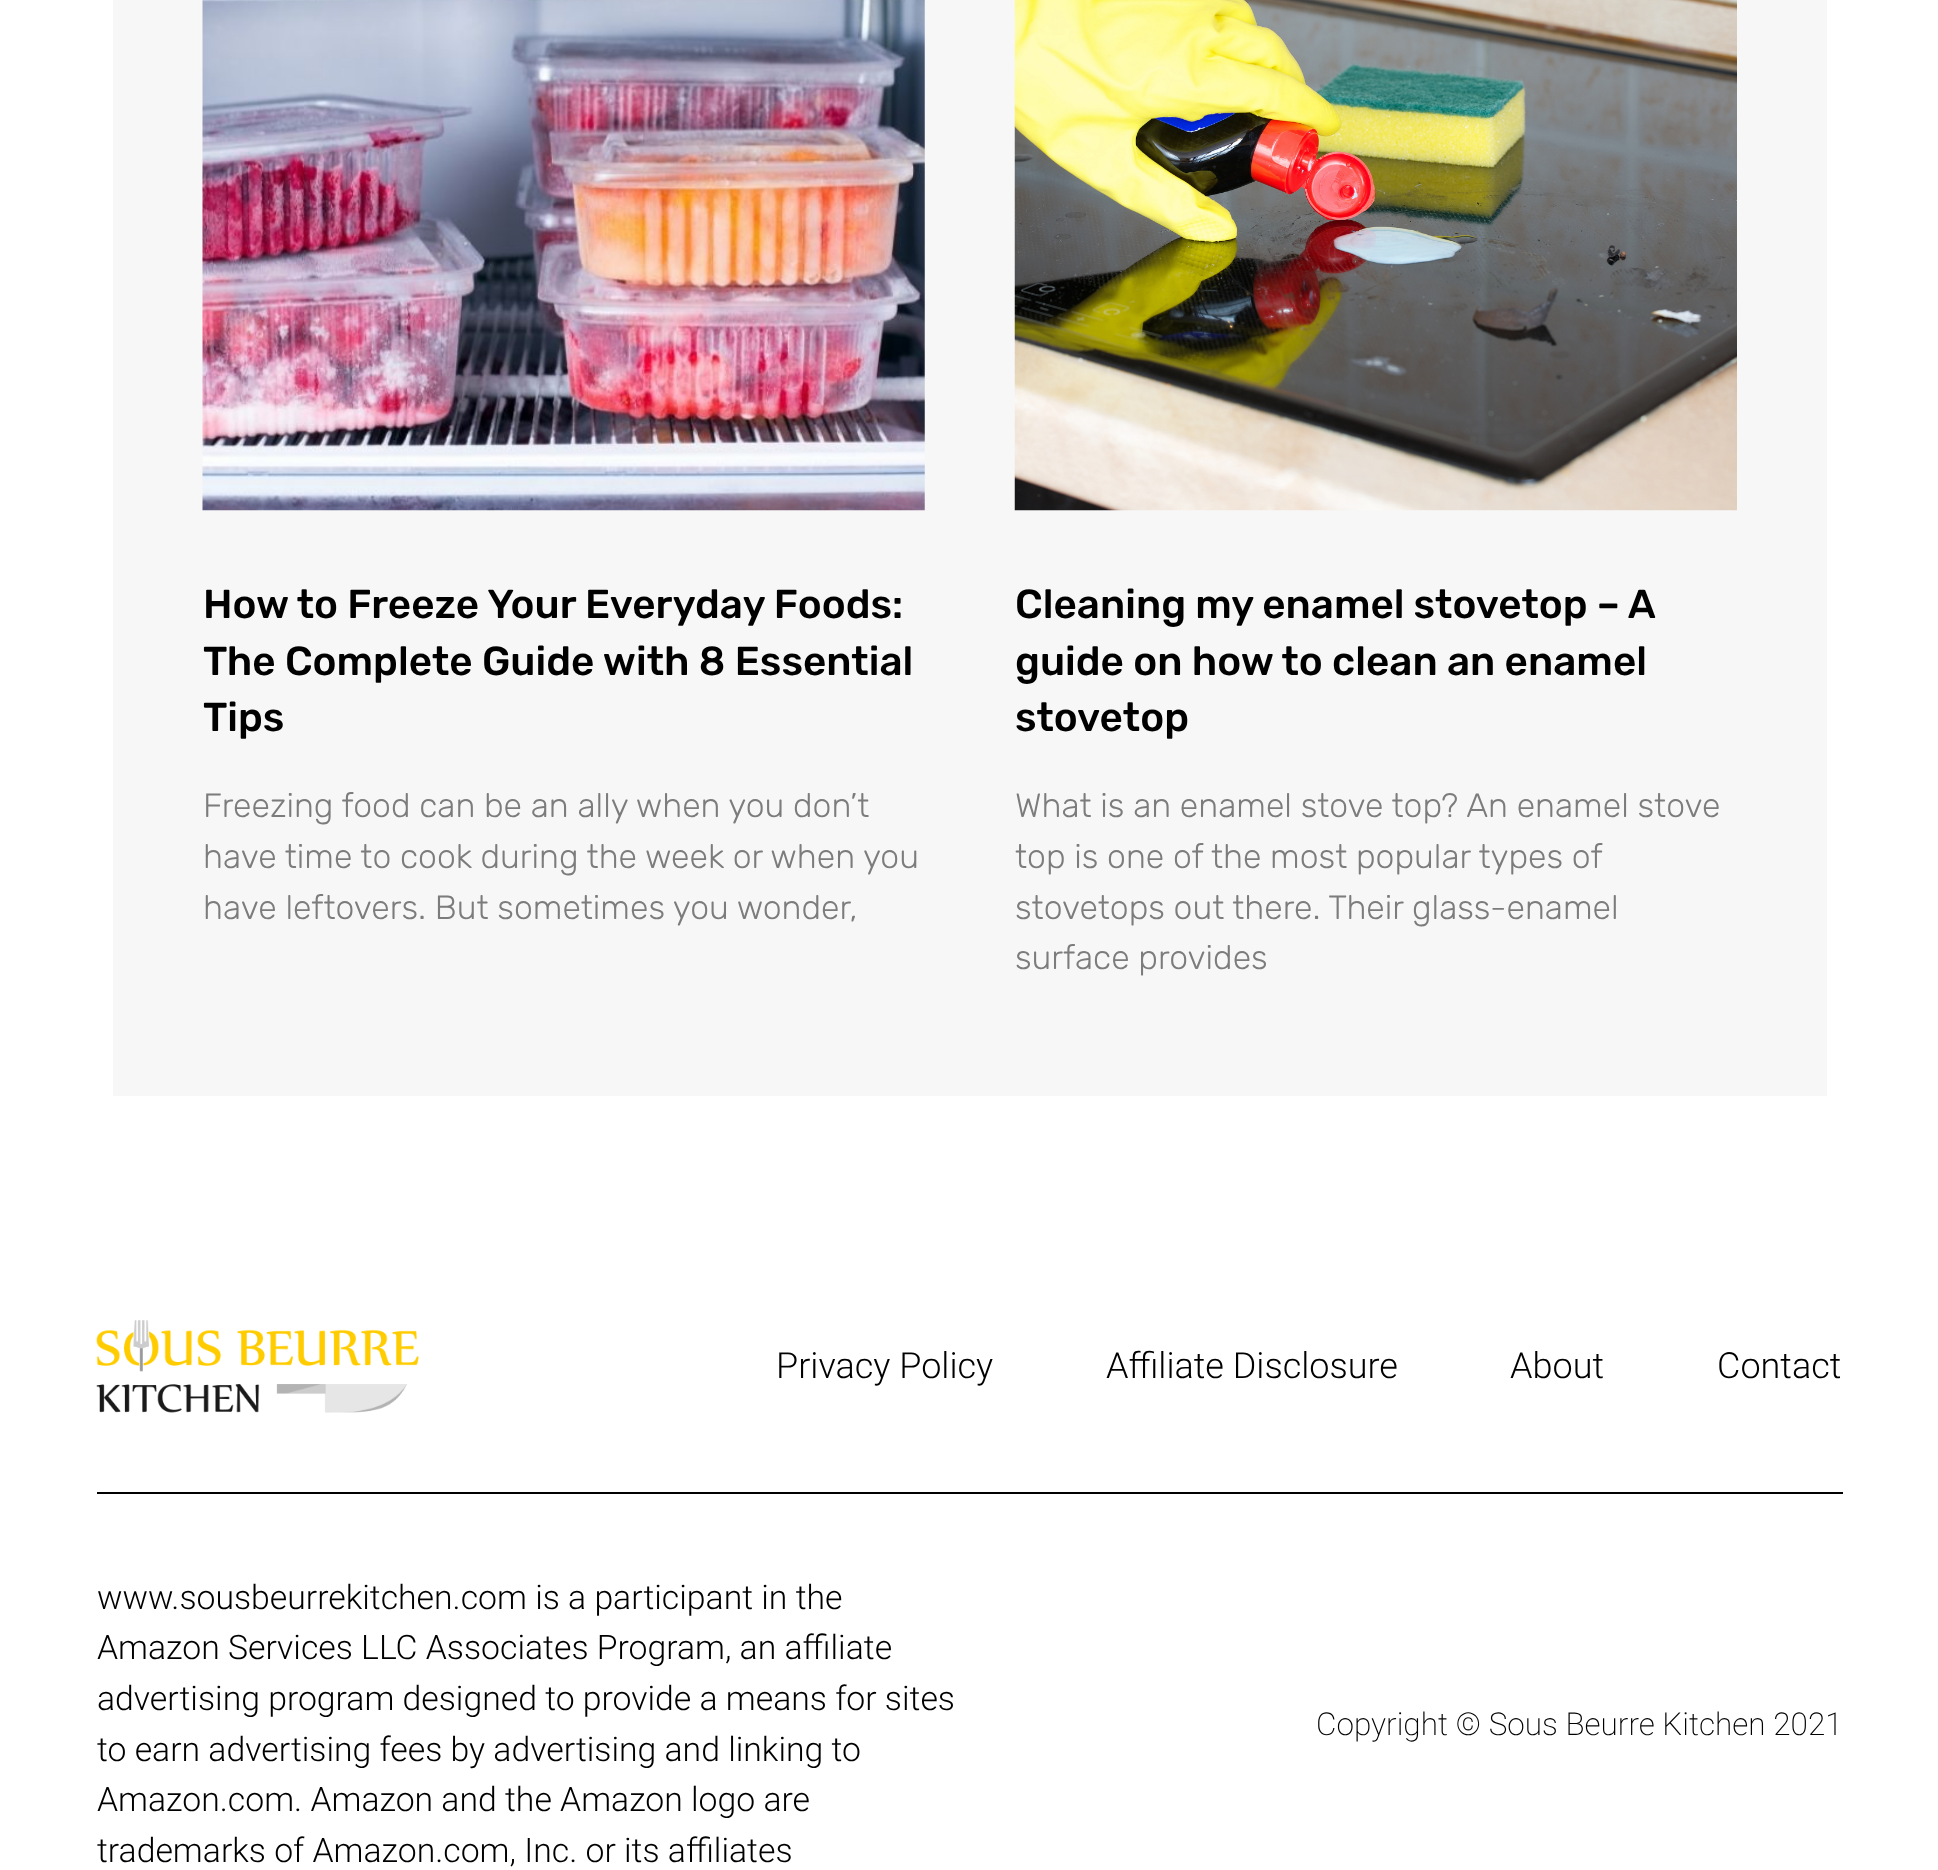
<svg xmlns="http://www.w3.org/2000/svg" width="1938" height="1870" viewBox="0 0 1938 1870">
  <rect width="100%" height="100%" fill="#fff"/>
  <path d="M113 0h1714v1096H113z" fill="#f7f7f7"/>
  <image x="202" y="0" width="723" height="511" href="img/1.png"/>
  <image x="1014" y="0" width="723" height="511" href="img/2.png"/>
  <image x="96" y="1320" width="323" height="93" href="img/3.png"/>
  <path d="M97 1492h1746v2H97z" fill="#000"/>
  <g font-family="Rubik" font-size="40.5" font-weight="500" fill="#000">
    <text x="203" y="618">How to Freeze Your Everyday Foods:</text>
    <text x="203" y="675">The Complete Guide with 8 Essential</text>
    <text x="203" y="731">Tips</text>
  </g>
  <g font-family="Rubik" font-size="33.75" font-weight="300" fill="#7c7c7c">
    <text x="203" y="817">Freezing food can be an ally when you don’t</text>
    <text x="203" y="868">have time to cook during the week or when you</text>
    <text x="203" y="919">have leftovers. But sometimes you wonder,</text>
  </g>
  <g font-family="Rubik" font-size="40.5" font-weight="500" fill="#000">
    <text x="1015" y="618" word-spacing="-0.25">Cleaning my enamel stovetop – A</text>
    <text x="1015" y="675">guide on how to clean an enamel</text>
    <text x="1015" y="731">stovetop</text>
  </g>
  <g font-family="Rubik" font-size="33.75" font-weight="300" fill="#7c7c7c">
    <text x="1015" y="817">What is an enamel stove top? An enamel stove</text>
    <text x="1015" y="868">top is one of the most popular types of</text>
    <text x="1015" y="919">stovetops out there. Their glass-enamel</text>
    <text x="1015" y="969">surface provides</text>
  </g>
  <g font-family="Roboto" font-size="36" font-weight="300" fill="#000">
    <text x="776" y="1378">Privacy Policy</text>
    <text x="1106" y="1378">Affiliate Disclosure</text>
    <text x="1510" y="1378">About</text>
    <text x="1717" y="1378">Contact</text>
  </g>
  <g font-family="Roboto" font-size="33.75" font-weight="300" fill="#000">
    <text x="97" y="1609">www.sousbeurrekitchen.com is a participant in the</text>
    <text x="97" y="1659">Amazon Services LLC Associates Program, an affiliate</text>
    <text x="97" y="1710">advertising program designed to provide a means for sites</text>
    <text x="97" y="1761">to earn advertising fees by advertising and linking to</text>
    <text x="97" y="1811">Amazon.com. Amazon and the Amazon logo are</text>
    <text x="97" y="1862">trademarks of Amazon.com, Inc. or its affiliates</text>
  </g>
  <text x="1316" y="1735" font-family="Roboto" font-size="31.5" font-weight="200" fill="#000">Copyright © Sous Beurre Kitchen 2021</text>
</svg>
